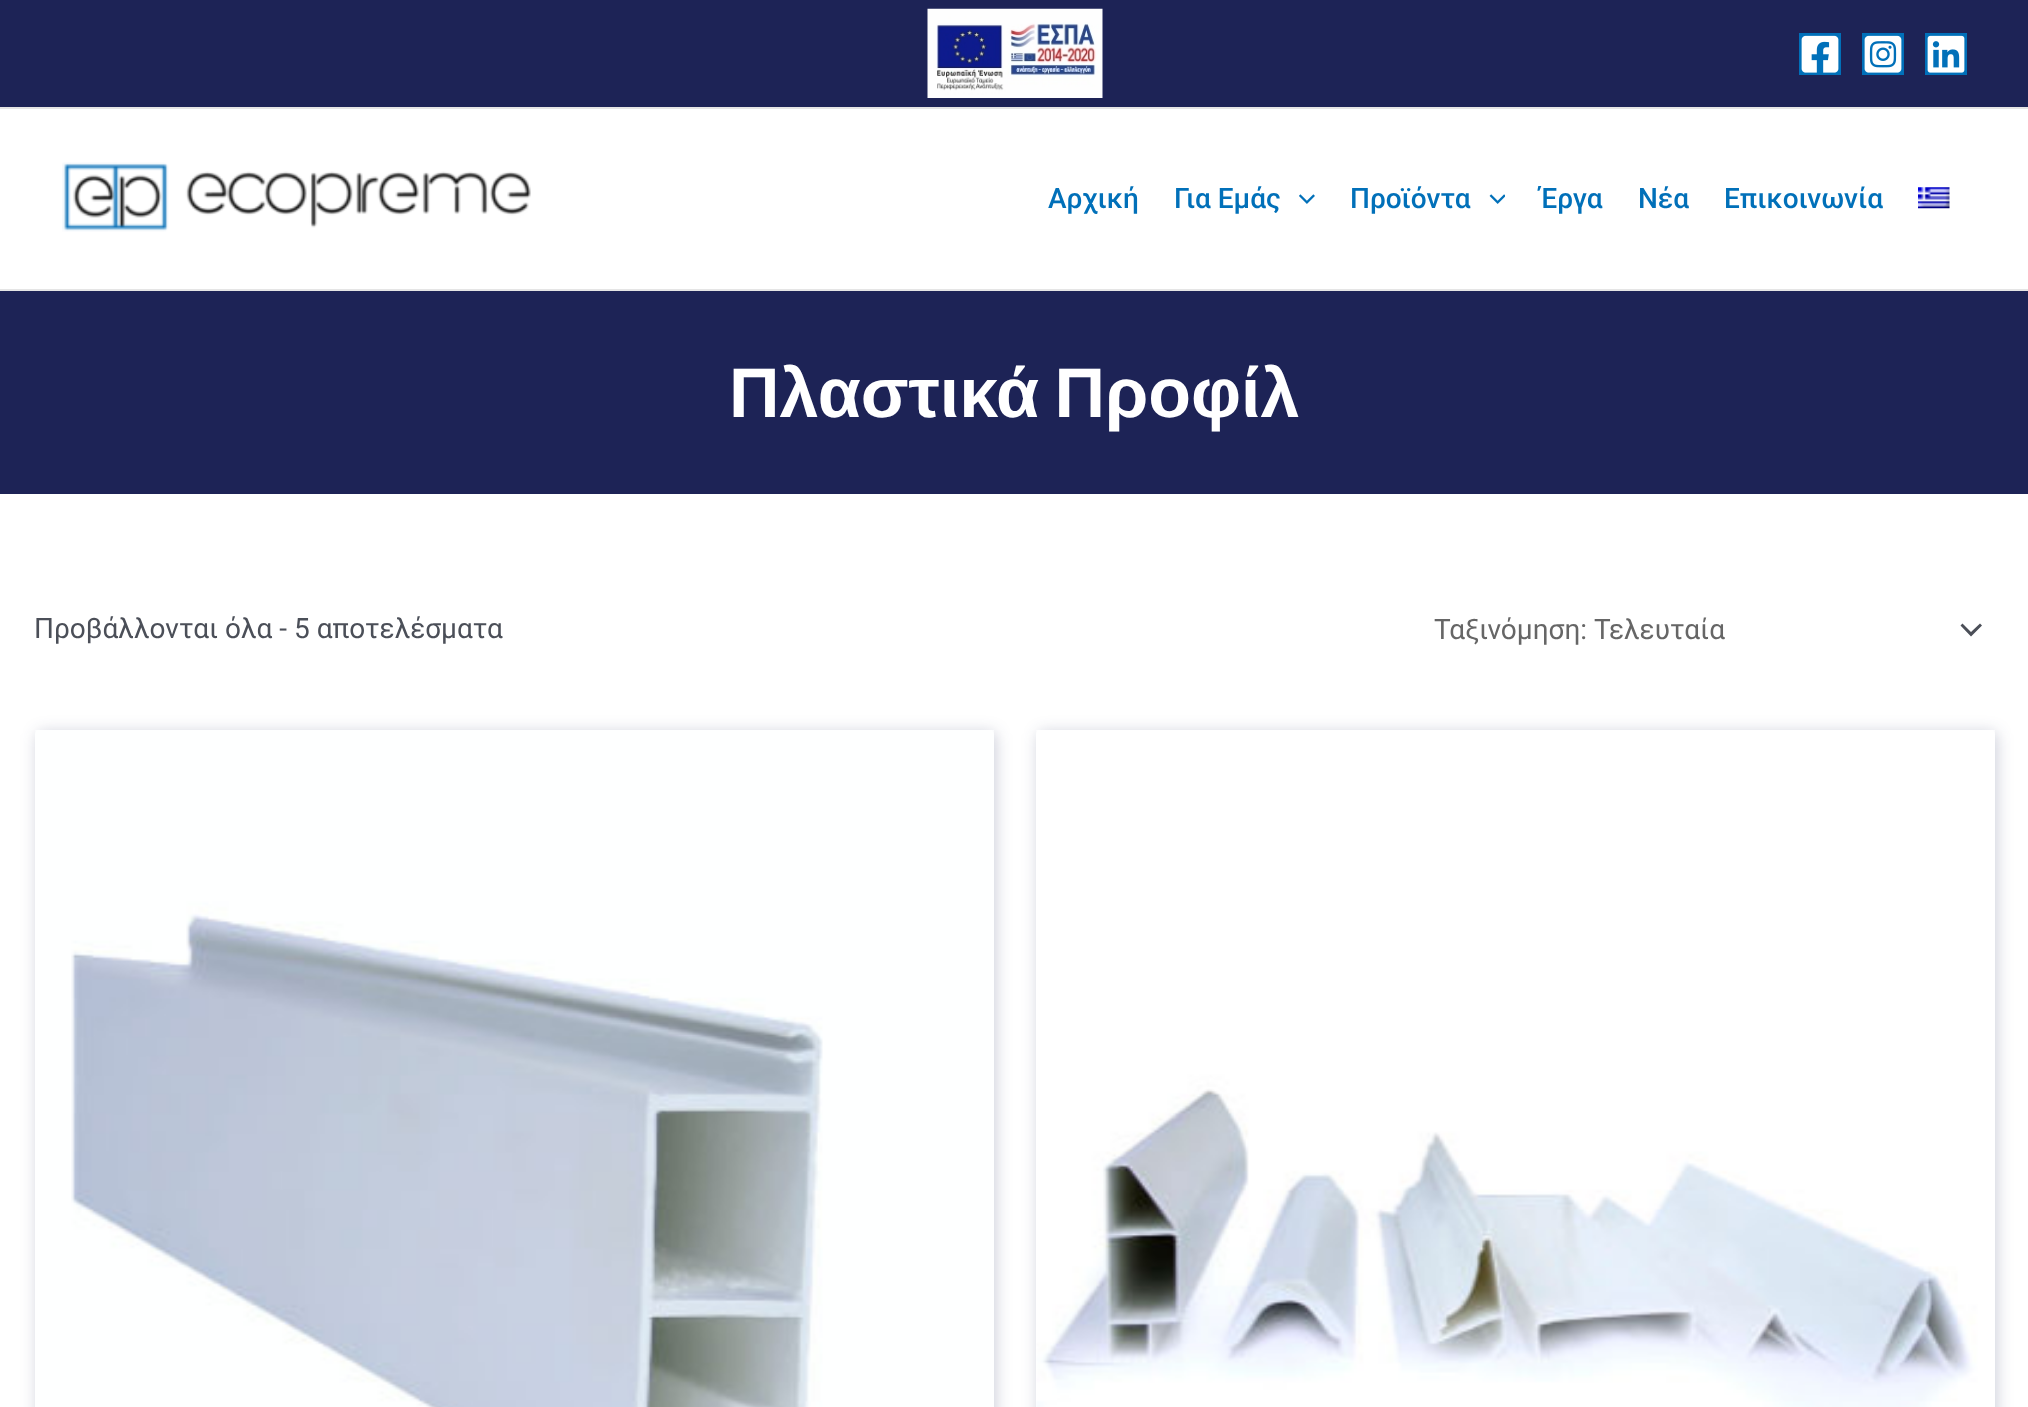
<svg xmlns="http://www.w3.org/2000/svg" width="2028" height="1407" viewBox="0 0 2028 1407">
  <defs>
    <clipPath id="clip1"><path d="M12 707H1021V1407H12ZM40 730H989C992 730 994 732 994 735V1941C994 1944 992 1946 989 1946H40C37 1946 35 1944 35 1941V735C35 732 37 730 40 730Z" clip-rule="evenodd"/></clipPath>
    <clipPath id="clip2"><path d="M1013 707H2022V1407H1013ZM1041 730H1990C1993 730 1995 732 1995 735V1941C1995 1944 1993 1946 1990 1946H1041C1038 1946 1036 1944 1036 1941V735C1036 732 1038 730 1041 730Z" clip-rule="evenodd"/></clipPath>
  </defs>
  <rect width="100%" height="100%" fill="#fff"/>
  <path d="M0 0h2028v107H0z" fill="#1d2356"/>
  <path d="M0 107h2028v2H0z" fill="#e5e5e5"/>
  <image x="927" y="8" width="176" height="90" href="img/1.png"/>
  <path d="M1799 33h42v42H1799z" fill="#0170b9"/>
  <image x="1801" y="35" width="38" height="38" href="img/2.png"/>
  <path d="M1862 33h42v42H1862z" fill="#0170b9"/>
  <image x="1864" y="35" width="38" height="38" href="img/3.png"/>
  <path d="M1925 33h42v42H1925z" fill="#0170b9"/>
  <image x="1927" y="35" width="38" height="38" href="img/4.png"/>
  <path d="M0 289h2028v2H0z" fill="#e5e5e5"/>
  <image x="62" y="162" width="469" height="70" href="img/5.png"/>
  <image x="1299" y="194" width="16" height="10" href="img/6.png"/>
  <image x="1489" y="194" width="16" height="10" href="img/7.png"/>
  <image x="1918" y="187" width="32" height="22" href="img/8.png"/>
  <path d="M0 291h2028v203H0z" fill="#1d2356"/>
  <path d="M1960.5 625.5L1971 636.5L1982 625.5L1980 623.5L1971 632L1962.5 623.5Z" fill="#4b4f58"/>
  <g clip-path="url(#clip1)">
    <rect x="37" y="732" width="959" height="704" rx="5" fill="#1d235638" filter="blur(8px)"/>
  </g>
  <image x="35" y="730" width="959" height="677" href="img/9.png"/>
  <g clip-path="url(#clip2)">
    <rect x="1038" y="732" width="959" height="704" rx="5" fill="#1d235638" filter="blur(8px)"/>
  </g>
  <image x="1036" y="730" width="959" height="677" href="img/10.png"/>
  <g font-family="Roboto" font-size="28" font-weight="500" fill="#0170b9">
    <text x="1048" y="208">Αρχική</text>
    <text x="1174" y="208">Για Εμάς</text>
    <text x="1350" y="208">Προϊόντα</text>
    <text x="1540" y="208">Έργα</text>
    <text x="1638" y="208">Νέα</text>
    <text x="1724" y="208">Επικοινωνία</text>
  </g>
  <text x="729" y="417" word-spacing="-4" font-family="Liberation Sans" font-size="70" font-weight="bold" fill="#fff">Πλαστικά Προφίλ</text>
  <text x="34" y="638" font-family="Roboto" font-size="28" fill="#4b4f58">Προβάλλονται όλα - 5 αποτελέσματα</text>
  <text x="1434" y="639" font-family="Roboto" font-size="28" fill="#666">Ταξινόμηση: Τελευταία</text>
</svg>
